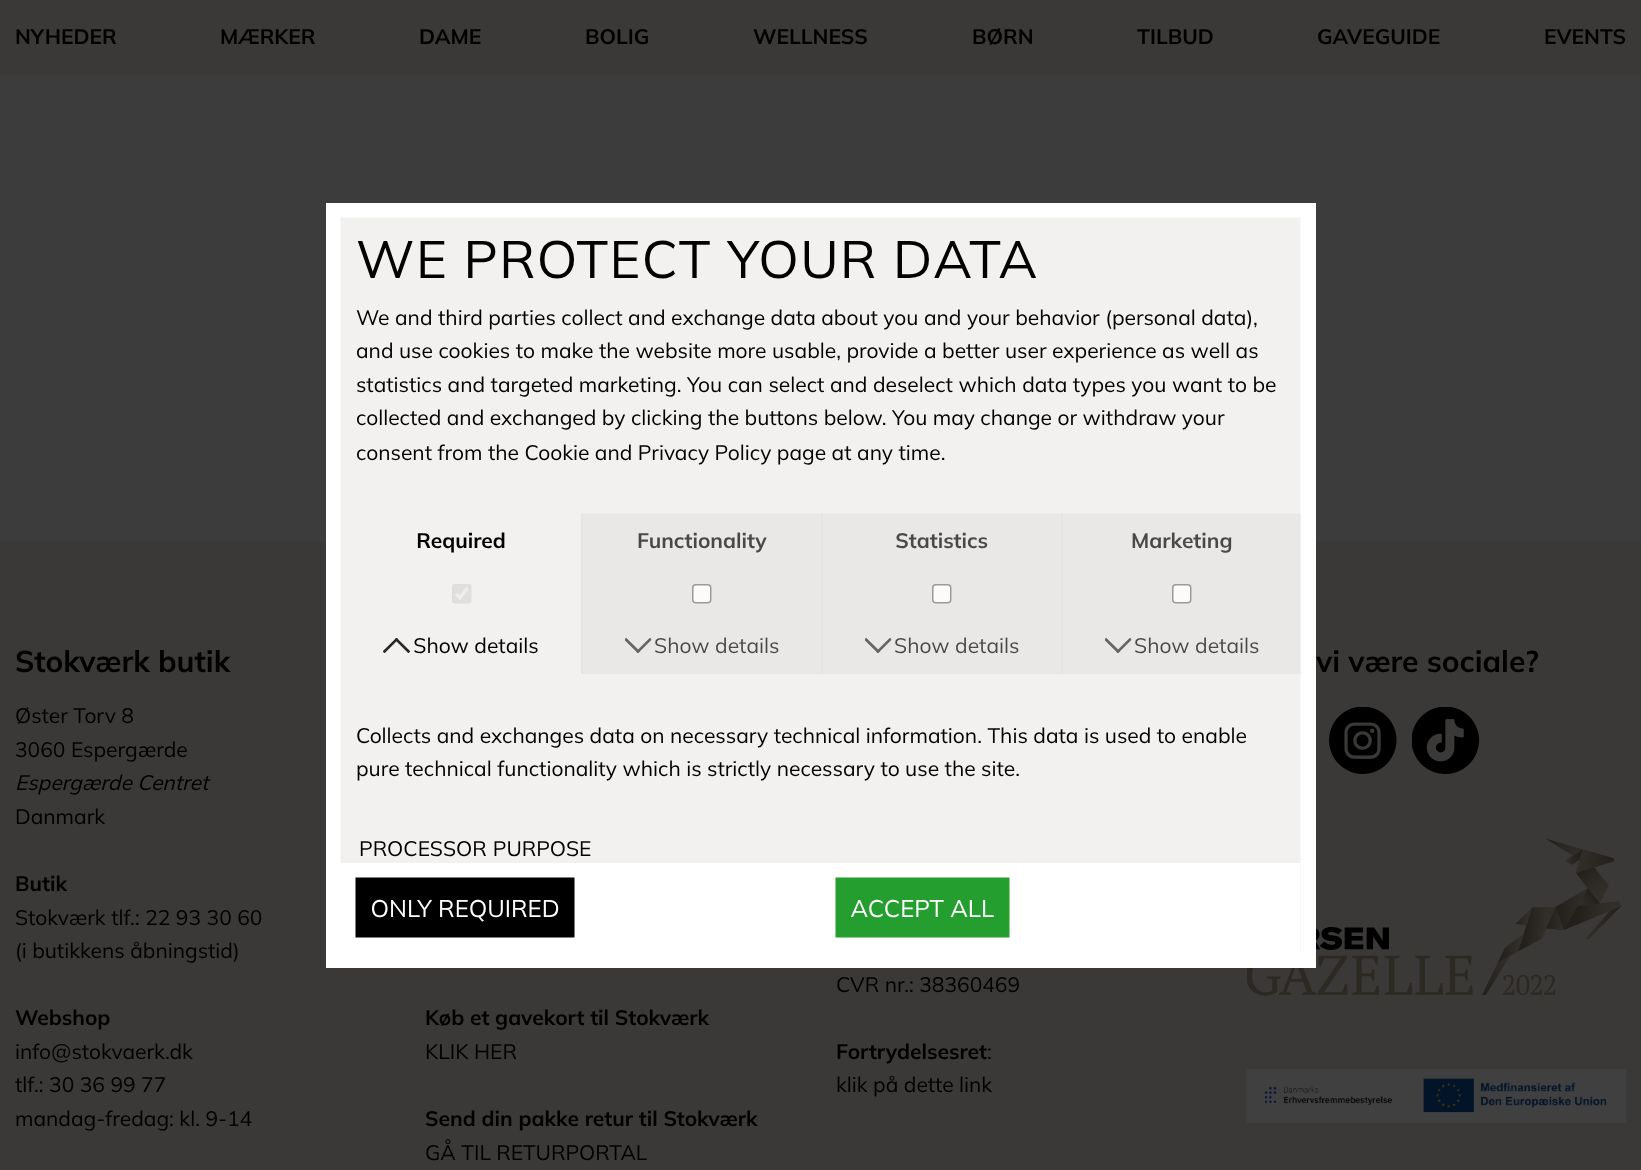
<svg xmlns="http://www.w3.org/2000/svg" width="1641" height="1170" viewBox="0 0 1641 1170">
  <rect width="100%" height="100%" fill="#3d3c3c"/>
  <path d="M0 0h1641v75H0z" fill="#3b3937"/>
  <path d="M0 542h1641v628H0z" fill="#3b3937"/>
  <image x="1329" y="707" width="68" height="67" href="img/1.png"/>
  <image x="1412" y="707" width="67" height="67" href="img/2.png"/>
  <image x="1247" y="838" width="374" height="158" href="img/3.png"/>
  <image x="1246" y="1069" width="380" height="54" href="img/4.png"/>
  <path d="M326 203h990v765H326z" fill="#fff"/>
  <image x="340" y="217" width="961" height="736" href="img/5.png"/>
  <g font-family="Mulish" font-size="21" font-weight="bold" fill="#000">
    <text x="15" y="44">NYHEDER</text>
    <text x="220" y="44">MÆRKER</text>
    <text x="419" y="44">DAME</text>
    <text x="585" y="44">BOLIG</text>
    <text x="753" y="44">WELLNESS</text>
    <text x="972" y="44">BØRN</text>
    <text x="1137" y="44">TILBUD</text>
    <text x="1317" y="44">GAVEGUIDE</text>
    <text x="1544" y="44">EVENTS</text>
  </g>
  <text x="15" y="672" font-family="Mulish" font-size="30" font-weight="bold" fill="#000">Stokværk butik</text>
  <g font-family="Mulish" font-size="21" fill="#000">
    <text x="15" y="723">Øster Torv 8</text>
    <text x="15" y="757">3060 Espergærde</text>
  </g>
  <text x="15" y="790" font-family="Mulish" font-size="21" font-style="italic" fill="#000">Espergærde Centret</text>
  <text x="15" y="824" font-family="Mulish" font-size="21" fill="#000">Danmark</text>
  <text x="15" y="891" font-family="Mulish" font-size="21" font-weight="bold" fill="#000">Butik</text>
  <g font-family="Mulish" font-size="21" fill="#000">
    <text x="15" y="925">Stokværk tlf.: 22 93 30 60</text>
    <text x="15" y="958">(i butikkens åbningstid)</text>
  </g>
  <text x="15" y="1025" font-family="Mulish" font-size="21" font-weight="bold" fill="#000">Webshop</text>
  <g font-family="Mulish" font-size="21" fill="#000">
    <text x="15" y="1059">info@stokvaerk.dk</text>
    <text x="15" y="1092">tlf.: 30 36 99 77</text>
    <text x="15" y="1126">mandag-fredag: kl. 9-14</text>
  </g>
  <text x="1316" y="672" font-family="Mulish" font-size="30" font-weight="bold" fill="#000">vi være sociale?</text>
  <text x="425" y="1025" font-family="Mulish" font-size="21" font-weight="bold" fill="#000">Køb et gavekort til Stokværk</text>
  <text x="425" y="1059" font-family="Mulish" font-size="21" fill="#000">KLIK HER</text>
  <text x="425" y="1126" font-family="Mulish" font-size="21" font-weight="bold" fill="#000">Send din pakke retur til Stokværk</text>
  <g font-family="Mulish" font-size="21" fill="#000">
    <text x="425" y="1160">GÅ TIL RETURPORTAL</text>
    <text x="836" y="992">CVR nr.: 38360469</text>
  </g>
  <text x="836" y="1059" font-family="Mulish" font-size="21" font-weight="bold" fill="#000">Fortrydelsesret</text>
  <g font-family="Mulish" font-size="21" fill="#000">
    <text x="987" y="1059">:</text>
    <text x="836" y="1092">klik på dette link</text>
  </g>
</svg>
